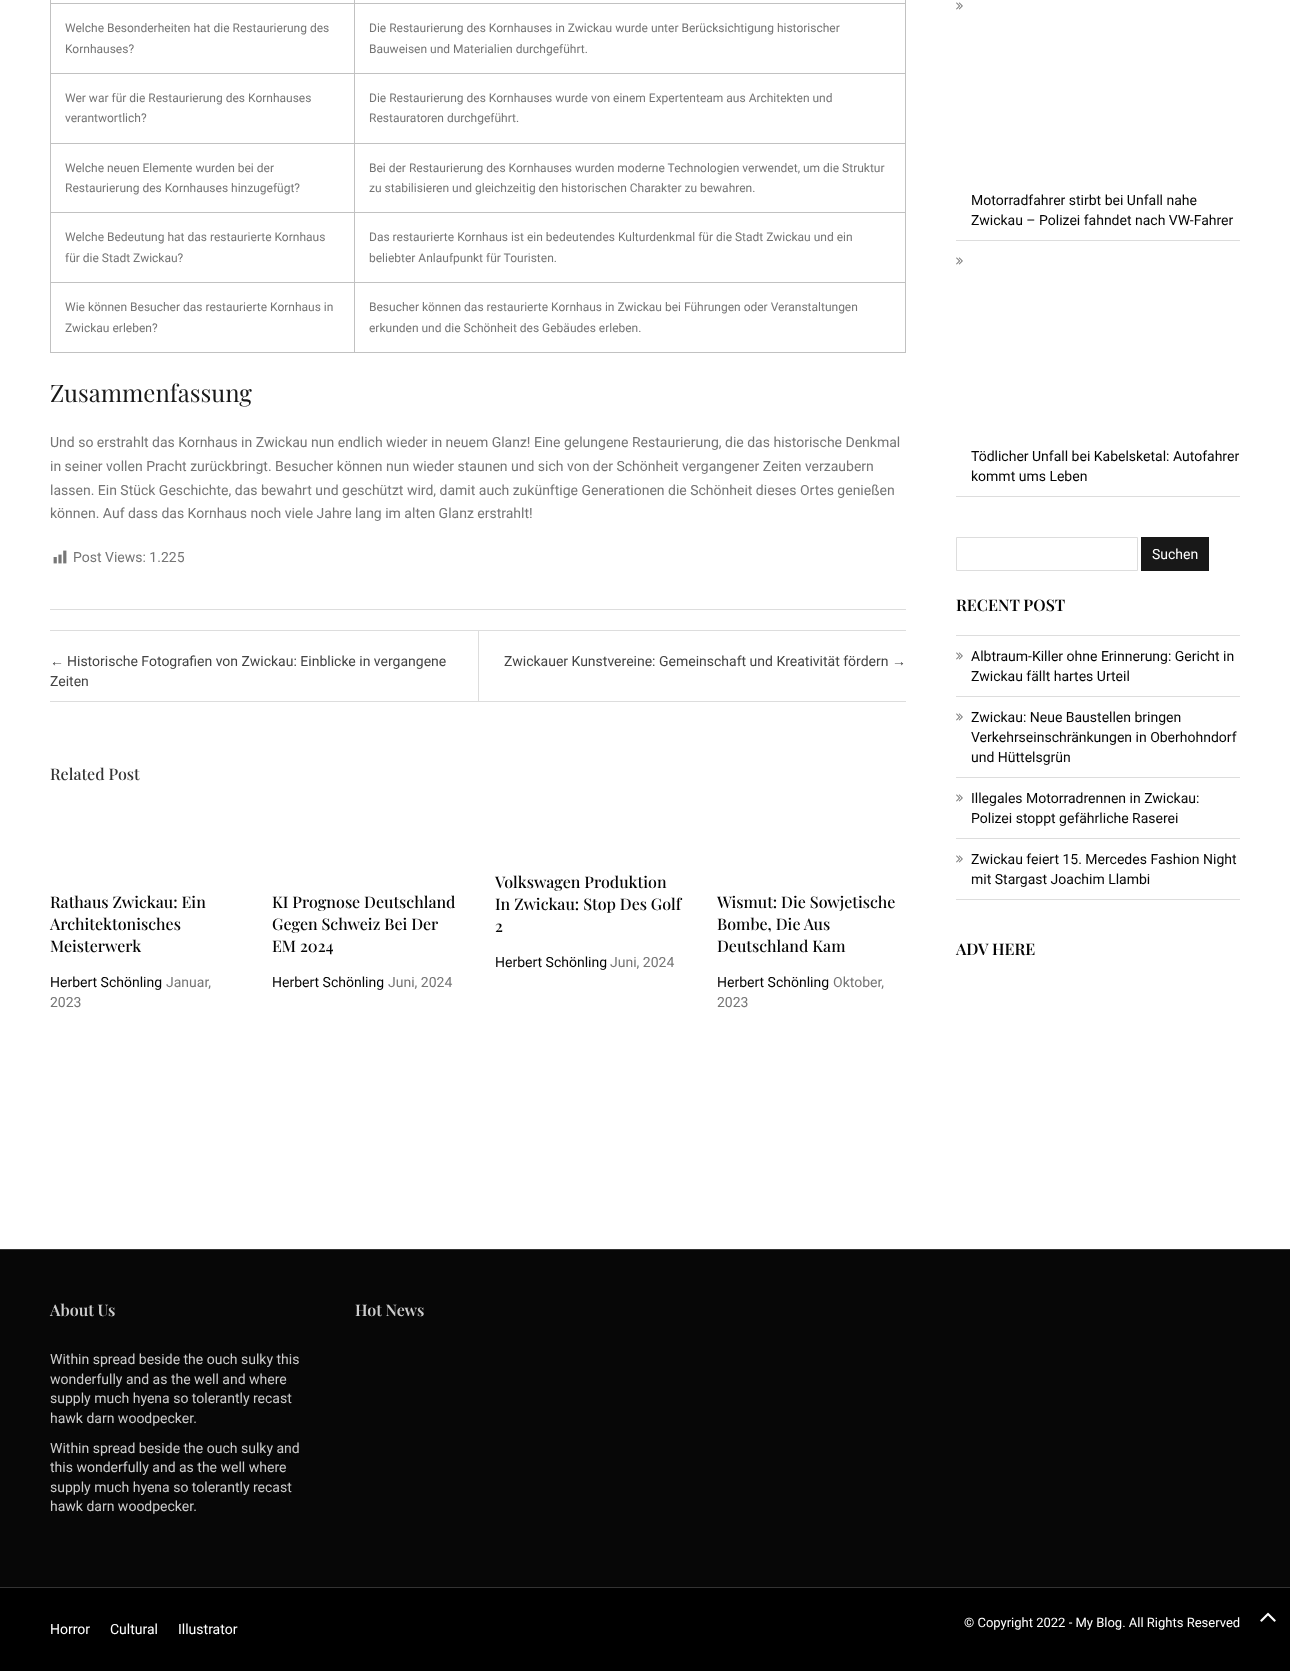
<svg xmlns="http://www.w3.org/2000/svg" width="1290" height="1671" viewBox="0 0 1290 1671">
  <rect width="100%" height="100%" fill="#fff"/>
  <path d="M354 3h552v1H354z" fill="#c1c1c1"/>
  <path d="M354 73h552v1H354z" fill="#c1c1c1"/>
  <path d="M354 143h552v1H354z" fill="#c1c1c1"/>
  <path d="M354 212h552v1H354z" fill="#c1c1c1"/>
  <path d="M354 282h552v1H354z" fill="#c1c1c1"/>
  <path d="M905 282h1v71H905z" fill="#c1c1c1"/>
  <path d="M354 352h552v1H354z" fill="#c1c1c1"/>
  <path d="M354 282h1v71H354z" fill="#c1c1c1"/>
  <path d="M50 282h305v1H50z" fill="#c1c1c1"/>
  <path d="M354 212h1v71H354z" fill="#c1c1c1"/>
  <path d="M50 212h305v1H50z" fill="#c1c1c1"/>
  <path d="M354 143h1v70H354z" fill="#c1c1c1"/>
  <path d="M50 143h305v1H50z" fill="#c1c1c1"/>
  <path d="M354 73h1v71H354z" fill="#c1c1c1"/>
  <path d="M50 73h305v1H50z" fill="#c1c1c1"/>
  <path d="M354 3h1v71H354z" fill="#c1c1c1"/>
  <path d="M50 3h305v1H50z" fill="#c1c1c1"/>
  <path d="M354 0h1v4H354z" fill="#c1c1c1"/>
  <path d="M50 352h305v1H50z" fill="#c1c1c1"/>
  <path d="M50 282h1v71H50z" fill="#c1c1c1"/>
  <path d="M50 212h1v71H50z" fill="#c1c1c1"/>
  <path d="M50 143h1v70H50z" fill="#c1c1c1"/>
  <path d="M50 73h1v71H50z" fill="#c1c1c1"/>
  <path d="M50 0h1v74H50z" fill="#c1c1c1"/>
  <path d="M905 212h1v71H905z" fill="#c1c1c1"/>
  <path d="M905 143h1v70H905z" fill="#c1c1c1"/>
  <path d="M905 73h1v71H905z" fill="#c1c1c1"/>
  <path d="M905 0h1v74H905z" fill="#c1c1c1"/>
  <image x="53" y="550" width="14" height="14" href="img/1.png"/>
  <path d="M50 609h856v1H50z" fill="#ddd"/>
  <path d="M50 630h856v1H50z" fill="#ddd"/>
  <path d="M50 701h856v1H50z" fill="#ddd"/>
  <path d="M478 631h1v70H478z" fill="#ddd"/>
  <path d="M956 240h284v1H956z" fill="#ddd"/>
  <image x="956" y="2" width="7" height="8" href="img/2.png"/>
  <path d="M956 496h284v1H956z" fill="#ddd"/>
  <image x="956" y="257" width="7" height="8" href="img/2.png"/>
  <path d="M956.5 537.5h181v33H956.5z" fill="none" stroke="#ddd"/>
  <path d="M1141 537h68v34H1141z" fill="#181818"/>
  <path d="M956 635h284v1H956z" fill="#ddd"/>
  <path d="M956 696h284v1H956z" fill="#ddd"/>
  <image x="956" y="652" width="7" height="8" href="img/2.png"/>
  <path d="M956 777h284v1H956z" fill="#ddd"/>
  <image x="956" y="713" width="7" height="8" href="img/2.png"/>
  <path d="M956 838h284v1H956z" fill="#ddd"/>
  <image x="956" y="794" width="7" height="8" href="img/2.png"/>
  <path d="M956 899h284v1H956z" fill="#ddd"/>
  <image x="956" y="855" width="7" height="8" href="img/2.png"/>
  <path d="M0 1250h1290v337H0z" fill="#070707"/>
  <path d="M0 1249h1290v1H0z" fill="#333"/>
  <path d="M0 1587h1290v1H0z" fill="#333"/>
  <path d="M0 1588h1290v83H0z" fill="#000"/>
  <image x="1260" y="1612" width="16" height="10" href="img/3.png"/>
  <g font-family="Roboto" font-size="12" fill="#757575">
    <text x="65" y="32">Welche Besonderheiten‌ hat die ‌Restaurierung des</text>
    <text x="65" y="53">Kornhauses?</text>
    <text x="369" y="32">Die Restaurierung‍ des Kornhauses in Zwickau wurde unter Berücksichtigung historischer</text>
    <text x="369" y="53">Bauweisen und Materialien durchgeführt.</text>
    <text x="65" y="102">Wer war für die Restaurierung des‌ Kornhauses</text>
    <text x="65" y="122">verantwortlich?</text>
    <text x="369" y="102">Die ‍Restaurierung des Kornhauses ‌wurde von einem Expertenteam aus Architekten und</text>
    <text x="369" y="122">Restauratoren durchgeführt.</text>
    <text x="65" y="172">Welche neuen Elemente ‍wurden bei der</text>
    <text x="65" y="192">Restaurierung des Kornhauses hinzugefügt?</text>
    <text x="369" y="172">Bei der Restaurierung des Kornhauses wurden moderne Technologien verwendet,‍ um die Struktur</text>
    <text x="369" y="192">zu stabilisieren und gleichzeitig den historischen Charakter zu bewahren.</text>
    <text x="65" y="241">Welche Bedeutung hat das restaurierte Kornhaus</text>
    <text x="65" y="262">für die Stadt Zwickau?</text>
    <text x="369" y="241">Das restaurierte Kornhaus ist ein bedeutendes Kulturdenkmal für die Stadt Zwickau und ein</text>
    <text x="369" y="262">beliebter Anlaufpunkt für Touristen.</text>
    <text x="65" y="311">Wie können‍ Besucher das restaurierte‍ Kornhaus in</text>
    <text x="65" y="332">Zwickau erleben?</text>
    <text x="369" y="311">Besucher können‍ das restaurierte Kornhaus in Zwickau bei Führungen oder Veranstaltungen</text>
    <text x="369" y="332">erkunden und die Schönheit des Gebäudes erleben.</text>
  </g>
  <text x="50" y="402" font-family="Playfair Display" font-size="24" fill="#181818">Zusammenfassung</text>
  <g font-family="Roboto" font-size="14" fill="#757575">
    <text x="50" y="447">Und so erstrahlt das Kornhaus in Zwickau nun endlich wieder in neuem Glanz! Eine gelungene Restaurierung, die das ‍historische Denkmal</text>
    <text x="50" y="471">in seiner vollen Pracht zurückbringt. Besucher können nun wieder staunen und sich von ‍der Schönheit vergangener Zeiten verzaubern</text>
    <text x="50" y="495">lassen. Ein Stück Geschichte, das‍ bewahrt und geschützt wird, damit auch zukünftige Generationen die Schönheit dieses Ortes genießen</text>
    <text x="50" y="518">können. Auf dass das Kornhaus ‍noch viele Jahre lang im ‌alten Glanz erstrahlt!</text>
    <text x="73" y="562">Post Views: 1.225</text>
  </g>
  <text x="50" y="666" font-family="Liberation Sans" font-size="14" fill="#444">←</text>
  <g font-family="Roboto" font-size="14" fill="#444">
    <text x="67" y="666">Historische Fotografien von Zwickau: Einblicke in vergangene</text>
    <text x="50" y="686">Zeiten</text>
    <text x="504" y="666">Zwickauer Kunstvereine: Gemeinschaft und Kreativität fördern</text>
  </g>
  <text x="892" y="666" font-family="Liberation Sans" font-size="14" fill="#444">→</text>
  <text x="50" y="780" font-family="Playfair Display" font-size="16" font-weight="500" fill="#333">Related Post</text>
  <g font-family="Playfair Display" font-size="16" font-weight="500" fill="#050505">
    <text x="50" y="908">Rathaus Zwickau: Ein</text>
    <text x="50" y="930">Architektonisches</text>
    <text x="50" y="952">Meisterwerk</text>
  </g>
  <text x="50" y="987" font-family="Roboto" font-size="14" fill="#050505">Herbert Schönling</text>
  <g font-family="Roboto" font-size="14" fill="#757575">
    <text x="166" y="987">Januar,</text>
    <text x="50" y="1007">2023</text>
  </g>
  <g font-family="Playfair Display" font-size="16" font-weight="500" fill="#050505">
    <text x="272" y="908">KI Prognose Deutschland</text>
    <text x="272" y="930">Gegen Schweiz Bei Der</text>
    <text x="272" y="952">EM 2024</text>
  </g>
  <text x="272" y="987" font-family="Roboto" font-size="14" fill="#050505">Herbert Schönling</text>
  <text x="388" y="987" font-family="Roboto" font-size="14" fill="#757575">Juni, 2024</text>
  <g font-family="Playfair Display" font-size="16" font-weight="500" fill="#050505">
    <text x="495" y="888">Volkswagen Produktion</text>
    <text x="495" y="910">In Zwickau: Stop Des Golf</text>
    <text x="495" y="932">2</text>
  </g>
  <text x="495" y="967" font-family="Roboto" font-size="14" fill="#050505">Herbert Schönling</text>
  <text x="610" y="967" font-family="Roboto" font-size="14" fill="#757575">Juni, 2024</text>
  <g font-family="Playfair Display" font-size="16" font-weight="500" fill="#050505">
    <text x="717" y="908">Wismut: Die Sowjetische</text>
    <text x="717" y="930">Bombe, Die Aus</text>
    <text x="717" y="952">Deutschland Kam</text>
  </g>
  <text x="717" y="987" font-family="Roboto" font-size="14" fill="#050505">Herbert Schönling</text>
  <g font-family="Roboto" font-size="14" fill="#757575">
    <text x="833" y="987">Oktober,</text>
    <text x="717" y="1007">2023</text>
  </g>
  <g font-family="Roboto" font-size="14" fill="#050505">
    <text x="971" y="205">Motorradfahrer stirbt bei Unfall nahe</text>
    <text x="971" y="225">Zwickau – Polizei fahndet nach VW-Fahrer</text>
    <text x="971" y="461">Tödlicher Unfall bei Kabelsketal: Autofahrer</text>
    <text x="971" y="481">kommt ums Leben</text>
  </g>
  <text x="1152" y="559" font-family="Roboto" font-size="14" fill="#fff">Suchen</text>
  <text x="956" y="611" font-family="Playfair Display" font-size="16" font-weight="600" fill="#050505">RECENT POST</text>
  <g font-family="Roboto" font-size="14" fill="#050505">
    <text x="971" y="661">Albtraum-Killer ohne Erinnerung: Gericht in</text>
    <text x="971" y="681">Zwickau fällt hartes Urteil</text>
    <text x="971" y="722">Zwickau: Neue Baustellen bringen</text>
    <text x="971" y="742">Verkehrseinschränkungen in Oberhohndorf</text>
    <text x="971" y="762">und Hüttelsgrün</text>
    <text x="971" y="803">Illegales Motorradrennen in Zwickau:</text>
    <text x="971" y="823">Polizei stoppt gefährliche Raserei</text>
    <text x="971" y="864">Zwickau feiert 15. Mercedes Fashion Night</text>
    <text x="971" y="884">mit Stargast Joachim Llambi</text>
  </g>
  <text x="956" y="955" font-family="Playfair Display" font-size="16" font-weight="600" fill="#050505">ADV HERE</text>
  <text x="50" y="1316" font-family="Playfair Display" font-size="16" font-weight="600" fill="#ccc">About Us</text>
  <g font-family="Roboto" font-size="14" fill="#ccc">
    <text x="50" y="1364">Within spread beside the ouch sulky this</text>
    <text x="50" y="1384">wonderfully and as the well and where</text>
    <text x="50" y="1403">supply much hyena so tolerantly recast</text>
    <text x="50" y="1423">hawk darn woodpecker.</text>
    <text x="50" y="1453">Within spread beside the ouch sulky and</text>
    <text x="50" y="1472">this wonderfully and as the well where</text>
    <text x="50" y="1492">supply much hyena so tolerantly recast</text>
    <text x="50" y="1511">hawk darn woodpecker.</text>
  </g>
  <text x="355" y="1316" font-family="Playfair Display" font-size="16" font-weight="600" fill="#ccc">Hot News</text>
  <g font-family="Roboto" font-size="14" fill="#fff">
    <text x="50" y="1634">Horror</text>
    <text x="110" y="1634">Cultural</text>
    <text x="178" y="1634">Illustrator</text>
  </g>
  <text x="964" y="1627" font-family="Roboto" font-size="13" fill="#fff">© Copyright 2022 - My Blog. All Rights Reserved</text>
</svg>
